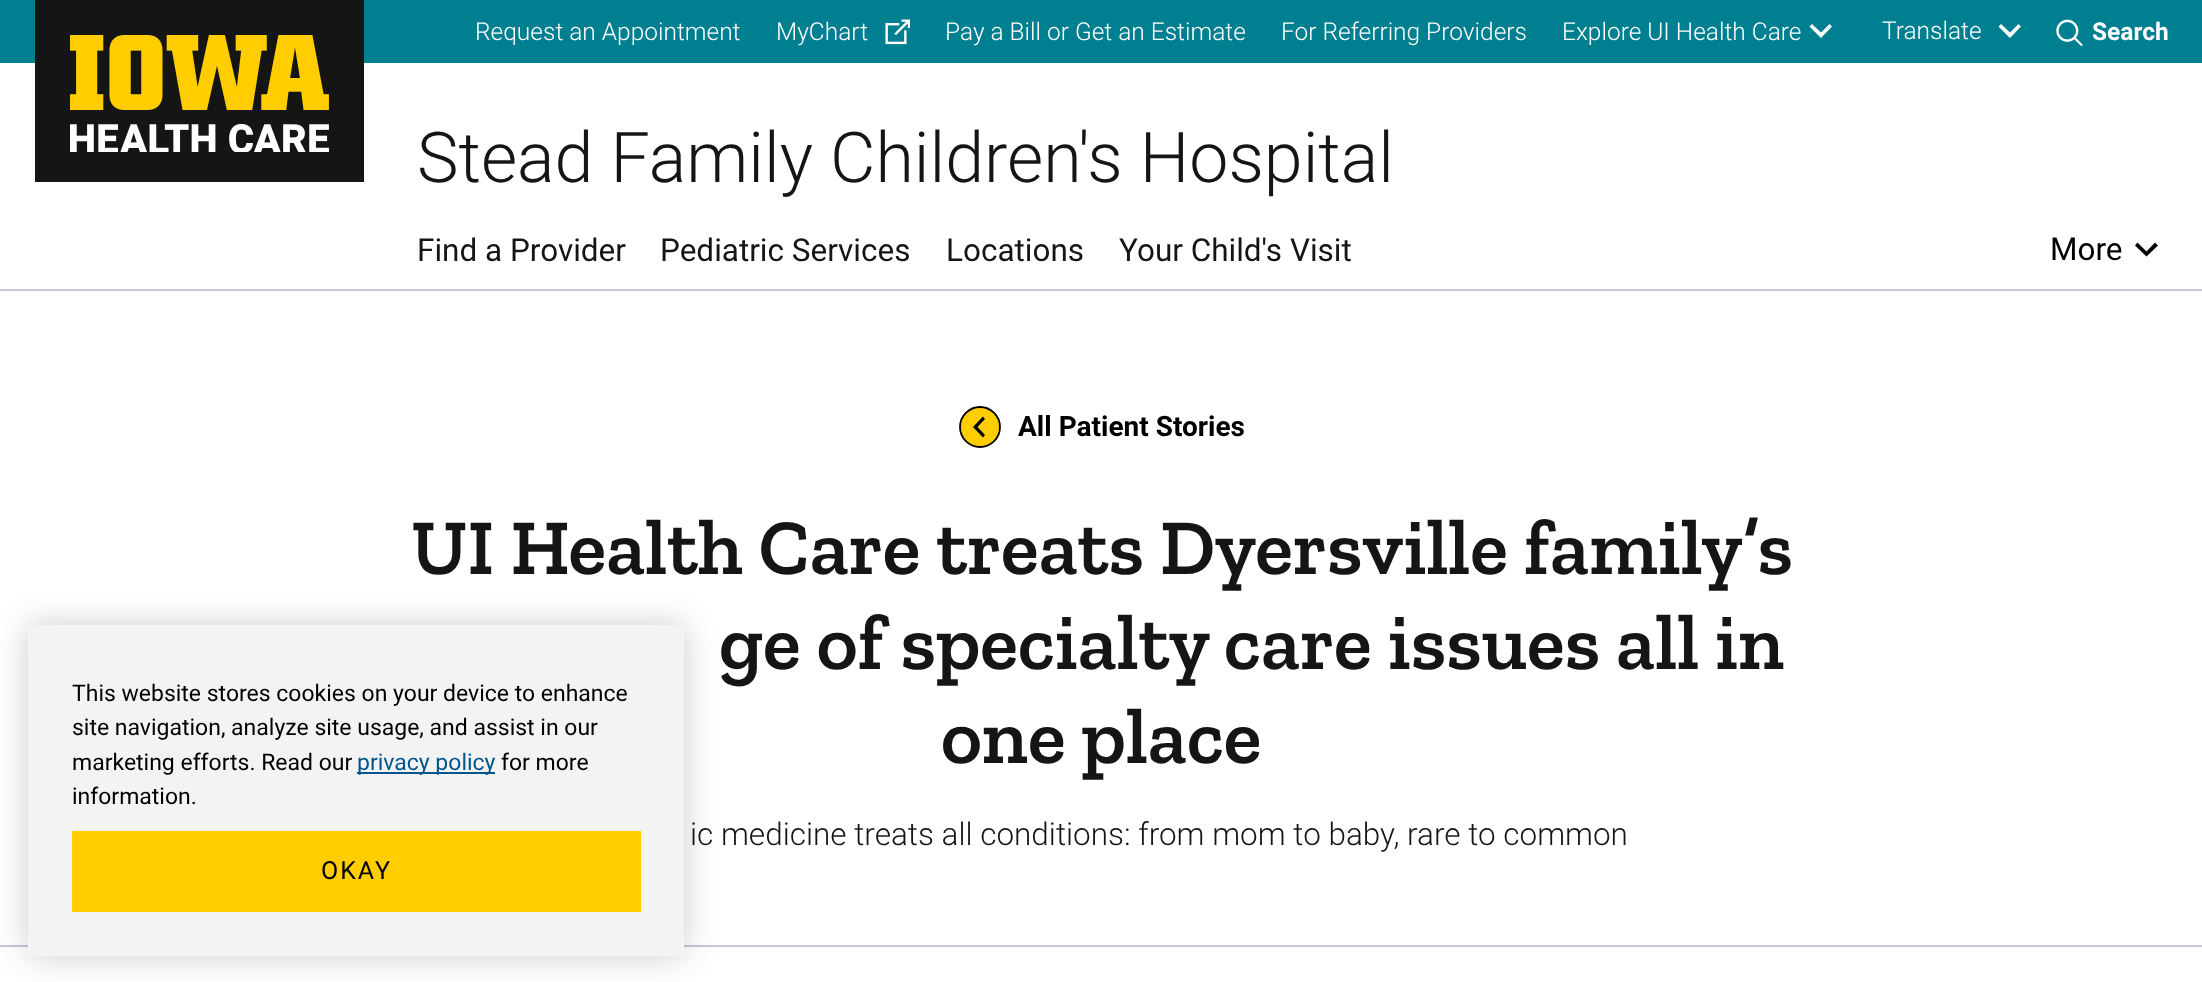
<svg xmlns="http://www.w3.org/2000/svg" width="2202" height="982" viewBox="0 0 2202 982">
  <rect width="100%" height="100%" fill="#fff"/>
  <path d="M0 945h2202v2H0z" fill="#c4c8d8"/>
  <path d="M28 625h656v331H28z" fill="#00000033" filter="blur(16px)"/>
  <path d="M28 625h656v331H28z" fill="#f3f3f3"/>
  <path d="M357 772h138v2H357z" fill="#00558c"/>
  <path d="M72 831h569v81H72z" fill="#ffcd00"/>
  <path d="M0 289h2202v2H0z" fill="#c4c8d8"/>
  <path d="M0 0h2202v63H0z" fill="#007f91"/>
  <image x="885" y="19" width="25" height="26" href="img/1.png"/>
  <path d="M1812 24L1821 32.5L1829.5 24L1832 26.5L1821 38L1809.5 26.5Z" fill="#fff"/>
  <path d="M2001 24L2010 32.5L2018.5 24L2021 26.5L2010 38L1998.5 26.5Z" fill="#fff"/>
  <image x="2056" y="19" width="27" height="27" href="img/2.png"/>
  <path d="M35 0h329v182H35z" fill="#151515"/>
  <image x="70" y="35" width="259" height="117" href="img/3.png"/>
  <path d="M2137.5 242.5L2146.5 251.5L2155 242.5L2158 245.5L2146.5 256.5L2135 245.5Z" fill="#000"/>
  <circle cx="980" cy="427" r="20" fill="#ffcd00" stroke="#000" stroke-width="1.8"/>
  <path d="M985 435L977.5 427L985 419L983 416.5L973 427L983 437.5Z" fill="#000"/>
  <g font-family="Roboto" font-size="23" fill="#000">
    <text x="72" y="701">This website stores cookies on your device to enhance</text>
    <text x="72" y="735">site navigation, analyze site usage, and assist in our</text>
    <text x="72" y="770">marketing efforts. Read our</text>
  </g>
  <text x="357" y="770" font-family="Roboto" font-size="23" fill="#00558c">privacy policy</text>
  <g font-family="Roboto" font-size="23" fill="#000">
    <text x="501" y="770">for more</text>
    <text x="72" y="804">information.</text>
  </g>
  <text x="321" y="879" font-family="Roboto" font-size="25" letter-spacing="2" fill="#000">OKAY</text>
  <g font-family="Roboto" font-size="24.5" font-weight="300" fill="#fff">
    <text x="475" y="40">Request an Appointment</text>
    <text x="776" y="40">MyChart</text>
    <text x="945" y="40">Pay a Bill or Get an Estimate</text>
    <text x="1281" y="40">For Referring Providers</text>
    <text x="1562" y="40">Explore UI Health Care</text>
    <text x="1882" y="39">Translate</text>
  </g>
  <text x="2092" y="40" font-family="Roboto" font-size="24.5" font-weight="bold" fill="#fff">Search</text>
  <text x="417" y="182" font-family="Roboto" font-size="70" font-weight="300" fill="#151515">Stead Family Children's Hospital</text>
  <g font-family="Roboto" font-size="31.5" fill="#151515">
    <text x="417" y="261">Find a Provider</text>
    <text x="660" y="261">Pediatric Services</text>
    <text x="946" y="261">Locations</text>
    <text x="1119" y="261">Your Child's Visit</text>
  </g>
  <text x="2050" y="260" font-family="Roboto" font-size="31.5" fill="#000">More</text>
  <text x="1018" y="436" font-family="Roboto" font-size="28" font-weight="bold" fill="#000">All Patient Stories</text>
  <g font-family="Zilla Slab" font-size="78.75" font-weight="600" fill="#151515">
    <text x="411" y="574">UI Health Care treats Dyersville family’s</text>
    <text x="719" y="669">ge of specialty care issues all in</text>
    <text x="941" y="763">one place</text>
  </g>
  <text x="690" y="845" font-family="Roboto" font-size="31.5" font-weight="300" fill="#151515">ic medicine treats all conditions: from mom to baby, rare to common</text>
</svg>
